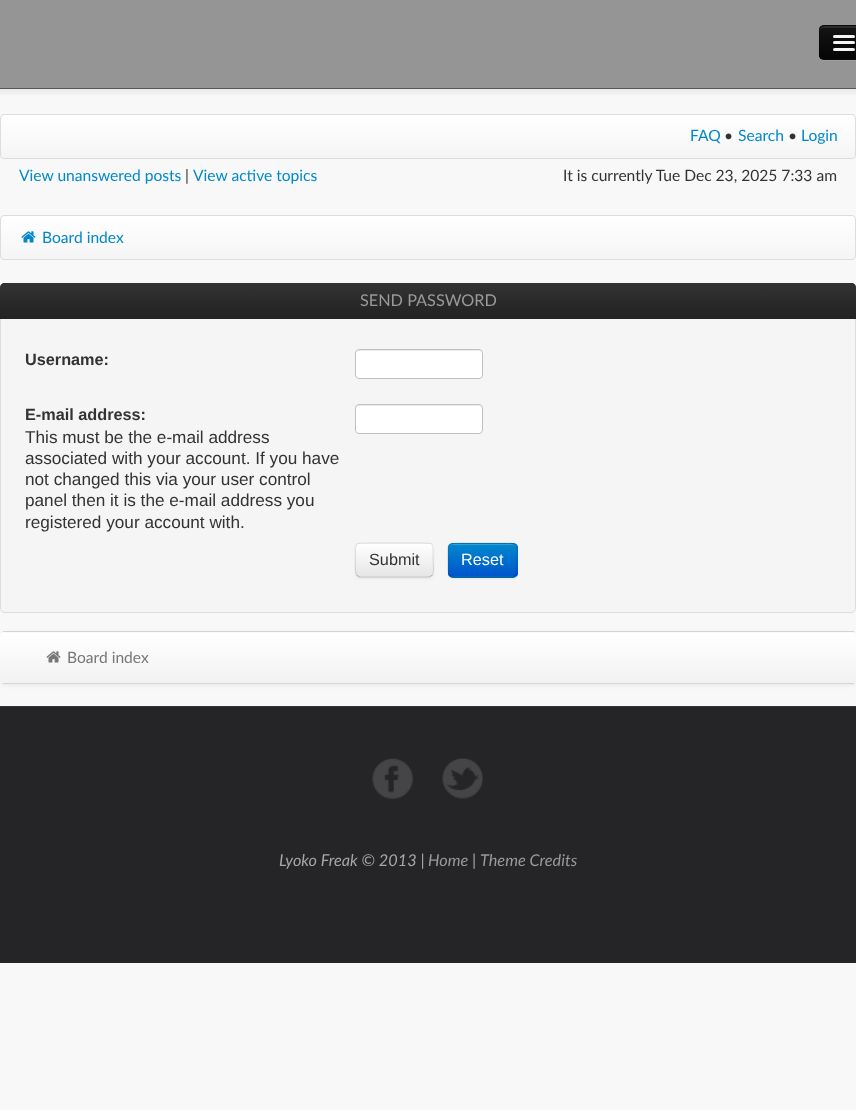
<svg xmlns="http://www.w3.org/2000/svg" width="856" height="1110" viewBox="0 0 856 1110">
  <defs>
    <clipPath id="clip1"><path d="M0 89h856v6H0z"/></clipPath>
    <clipPath id="clip2"><rect x="819" y="25" width="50" height="35" rx="5"/></clipPath>
    <linearGradient id="g1" gradientUnits="userSpaceOnUse" x1="844" y1="26" x2="844" y2="59"><stop offset="0" stop-color="#151515"/><stop offset="1" stop-color="#040404"/></linearGradient>
    <clipPath id="clip3"><rect y="114" width="856" height="45" rx="4"/></clipPath>
    <linearGradient id="g2" gradientUnits="userSpaceOnUse" x1="428" y1="115" x2="428" y2="158"><stop offset="0" stop-color="#fff"/><stop offset="1" stop-color="#f5f5f5"/></linearGradient>
    <clipPath id="clip4"><rect y="215" width="856" height="45" rx="4"/></clipPath>
    <linearGradient id="g3" gradientUnits="userSpaceOnUse" x1="428" y1="216" x2="428" y2="259"><stop offset="0" stop-color="#fff"/><stop offset="1" stop-color="#f5f5f5"/></linearGradient>
    <linearGradient id="g4" gradientUnits="userSpaceOnUse" x1="428" y1="282" x2="428" y2="319"><stop offset="0" stop-color="#333"/><stop offset="1" stop-color="#222"/></linearGradient>
    <clipPath id="clip5"><rect x="355" y="543" width="79" height="35" rx="5"/></clipPath>
    <linearGradient id="g5" gradientUnits="userSpaceOnUse" x1="394" y1="544" x2="394" y2="576"><stop offset="0" stop-color="#fff"/><stop offset="1" stop-color="#e6e6e6"/></linearGradient>
    <clipPath id="clip6"><rect x="448" y="543" width="70" height="35" rx="5"/></clipPath>
    <linearGradient id="g6" gradientUnits="userSpaceOnUse" x1="483" y1="544" x2="483" y2="576"><stop offset="0" stop-color="#08c"/><stop offset="1" stop-color="#05c"/></linearGradient>
    <clipPath id="clip7"><rect y="631" width="856" height="53" rx="5"/></clipPath>
    <linearGradient id="g7" gradientUnits="userSpaceOnUse" x1="428" y1="632" x2="428" y2="683"><stop offset="0" stop-color="#fff"/><stop offset="1" stop-color="#f2f2f2"/></linearGradient>
  </defs>
  <rect width="100%" height="100%" fill="#f8f8f8"/>
  <g clip-path="url(#clip1)">
    <path d="M-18 1h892v89H-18z" fill="#0000001a" filter="blur(6px)"/>
  </g>
  <path d="M0 0h856v88H0z" fill="#00000066"/>
  <path d="M0 88h856v1H0z" fill="#585858"/>
  <path d="M819 57C820 62 827 61 831 61H851C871 61 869 63 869 44V29V55C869 58 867 60 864 60H824C822 60 820 59 819 57Z" fill="#9d9d9d"/>
  <rect x="819" y="25" width="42" height="35" rx="5" fill="#0e0e0e"/>
  <g clip-path="url(#clip2)">
    <path d="M819 26h37v33H819z" fill="url(#g1)"/>
  </g>
  <path d="M824 28H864C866 28 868 29 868 31C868 25 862 26 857 26H831C826 26 820 25 820 31C820 29 822 28 824 28Z" fill="#2c2c2c"/>
  <path d="M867 58C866 59 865 59.5 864 59.5H824C822.5 59.5 821.5 59 820.5 58" fill="none" stroke="#00000040" stroke-width="1.2"/>
  <path d="M820.5 58C818 55.5 819.5 45.5 819.5 42.5V34C819.5 31 819 26.5 823 25.5H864.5C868.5 26.5 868 31 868 34V42.5C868 45.5 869.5 55.5 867 58" fill="none" stroke="#0000001a" stroke-width="1.2"/>
  <path d="M833 37.5C832.5 39.5 836.5 39 837.5 39H850.5C851 39 856 39.5 855 37L854 37.5C852 37.5 833.5 37.5 833 37.5Z" fill="#0b0b0b"/>
  <rect x="833" y="35" width="22" height="3" rx="1.5" fill="#f5f5f5"/>
  <path d="M833.5 43.5C831.5 46.5 837 46 837.5 46H844C846 46 854 46.5 854.5 45.5C855 44.5 855 44 854.5 43.5C854 44 834.5 44 833.5 43.5Z" fill="#080808"/>
  <rect x="833" y="41" width="22" height="3" rx="1.5" fill="#f5f5f5"/>
  <rect x="833" y="48" width="22" height="3" rx="1.5" fill="#f5f5f5"/>
  <g clip-path="url(#clip3)">
    <path d="M0 115h856v43H0z" fill="url(#g2)"/>
  </g>
  <rect x="0.5" y="114.5" width="855" height="44" rx="3.5" fill="none" stroke="#ddd"/>
  <g clip-path="url(#clip4)">
    <path d="M0 216h856v43H0z" fill="url(#g3)"/>
  </g>
  <rect x="0.5" y="215.5" width="855" height="44" rx="3.5" fill="none" stroke="#ddd"/>
  <image x="21" y="231" width="15" height="12" href="img/1.png"/>
  <rect x="0.5" y="283.5" width="855" height="329" rx="4.5" fill="#f5f5f5" stroke="#ddd"/>
  <path d="M4 283H852C854 283 856 285 856 287V319H0V287C0 285 2 283 4 283Z" fill="url(#g4)"/>
  <rect x="355" y="349" width="128" height="30" rx="4" fill="#fff"/>
  <path d="M359 351H479C480 351 481 352 481 354V352C481 351 480 350 478 350H358C357 350 356 351 356 352V354C356 352 357 351 359 351Z" fill="#ececec"/>
  <rect x="355.5" y="349.5" width="127" height="29" rx="3.5" fill="none" stroke="#c0c0c0"/>
  <rect x="355" y="404" width="128" height="30" rx="4" fill="#fff"/>
  <path d="M359 406H479C480 406 481 407 481 409V408C481 406 480 405 478 405H358C357 405 356 406 356 408V409C356 407 357 406 359 406Z" fill="#ececec"/>
  <rect x="355.5" y="404.5" width="127" height="29" rx="3.5" fill="none" stroke="#c0c0c0"/>
  <rect x="355" y="544" width="79" height="35" rx="5" fill="#0000000d" filter="blur(1px)"/>
  <rect x="355" y="543" width="79" height="35" rx="5" fill="#f5f5f5"/>
  <g clip-path="url(#clip5)">
    <path d="M355 544h79v32H355z" fill="url(#g5)"/>
  </g>
  <path d="M360 545H418C430 545 432 542 432 553V575C434 572 433 563 433 560C433 543 436 544 418 544H358C356 545 356 547 356 549C356 547 358 545 360 545Z" fill="#ffffff33"/>
  <path d="M432 575.5L429 577H359.5L357 575.5" fill="none" stroke="#00000040" stroke-width="1.2"/>
  <path d="M357 575.5C354.5 573 355.5 563 355.5 560C355.5 541.5 353 543 371.5 543H417.5C436 543 433 541.5 433 560C433 563 434.5 573 432 575.5" fill="none" stroke="#0000001a" stroke-width="1.2"/>
  <rect x="448" y="544" width="70" height="35" rx="5" fill="#0000000d" filter="blur(1px)"/>
  <rect x="448" y="543" width="70" height="35" rx="5" fill="#0074cc"/>
  <g clip-path="url(#clip6)">
    <path d="M448 544h70v32H448z" fill="url(#g6)"/>
  </g>
  <path d="M452 545H512C515 545 516 547 516 549C516 542 507 544 502 544H463C458 544 449 542 449 549C449 547 450 545 452 545Z" fill="#339fd6"/>
  <path d="M515.5 575.5L513 577H452L449.5 575.5" fill="none" stroke="#00000040" stroke-width="1.2"/>
  <path d="M449.5 575.5C447 573 448 563 448 560C448 542.5 445 543 462.5 543H502.5C520 543 517 542.5 517 560C517 563 518 573 515.5 575.5" fill="none" stroke="#0000001a" stroke-width="1.2"/>
  <rect y="633" width="856" height="52" rx="5" fill="#00000012" filter="blur(2.5px)"/>
  <rect y="631" width="856" height="53" rx="5" fill="#fafafa"/>
  <g clip-path="url(#clip7)">
    <path d="M0 633h856v50H0z" fill="url(#g7)"/>
  </g>
  <path d="M3 631h851v1H3z" fill="#d4d4d4"/>
  <path d="M3 683h851v1H3z" fill="#d4d4d4"/>
  <image x="46" y="651" width="15" height="12" href="img/2.png"/>
  <path d="M0 707h856v256H0z" fill="#252528"/>
  <path d="M0 706h856v1H0z" fill="#343437"/>
  <image x="372" y="758" width="41" height="41" href="img/3.png"/>
  <image x="442" y="758" width="41" height="41" href="img/4.png"/>
  <text x="690" y="141" font-family="Lato" font-size="15.6" fill="#08c">FAQ</text>
  <text x="724" y="141" font-family="Lato" font-size="15.6" fill="#333">•</text>
  <text x="738" y="141" font-family="Lato" font-size="15.6" fill="#08c">Search</text>
  <text x="788" y="141" font-family="Lato" font-size="15.6" fill="#333">•</text>
  <g font-family="Lato" font-size="15.6" fill="#08c">
    <text x="801" y="141">Login</text>
    <text x="19" y="181">View unanswered posts</text>
  </g>
  <text x="185" y="181" font-family="Lato" font-size="15.6" fill="#333">|</text>
  <text x="193" y="181" font-family="Lato" font-size="15.6" fill="#08c">View active topics</text>
  <text x="563" y="181" font-family="Lato" font-size="15.6" fill="#333">It is currently Tue Dec 23, 2025 7:33 am</text>
  <text x="42" y="243" font-family="Lato" font-size="15.6" fill="#08c">Board index</text>
  <text x="360" y="306" font-family="Lato" font-size="16.25" fill="#999">SEND PASSWORD</text>
  <g font-family="Liberation Sans" font-size="16.25" font-weight="bold" fill="#333">
    <text x="25" y="365">Username:</text>
    <text x="25" y="420">E-mail address:</text>
  </g>
  <g font-family="Liberation Sans" font-size="17.2" fill="#333">
    <text x="25" y="443">This must be the e-mail address</text>
    <text x="25" y="464">associated with your account. If you have</text>
    <text x="25" y="485">not changed this via your user control</text>
    <text x="25" y="506">panel then it is the e-mail address you</text>
    <text x="25" y="528">registered your account with.</text>
  </g>
  <text x="369" y="565" font-family="Liberation Sans" font-size="16.25" fill="#333">Submit</text>
  <text x="461" y="565" font-family="Liberation Sans" font-size="16.25" fill="#fff">Reset</text>
  <text x="67" y="663" font-family="Lato" font-size="15.6" fill="#777">Board index</text>
  <text x="279" y="866" font-family="Lato" font-size="16.25" font-style="italic" fill="#a6a6a7">Lyoko Freak © 2013 |</text>
  <text x="428" y="866" font-family="Lato" font-size="16.25" font-style="italic" fill="#999">Home</text>
  <text x="472" y="866" font-family="Lato" font-size="16.25" font-style="italic" fill="#a6a6a7">|</text>
  <text x="480" y="866" font-family="Lato" font-size="16.25" font-style="italic" fill="#999">Theme Credits</text>
</svg>
